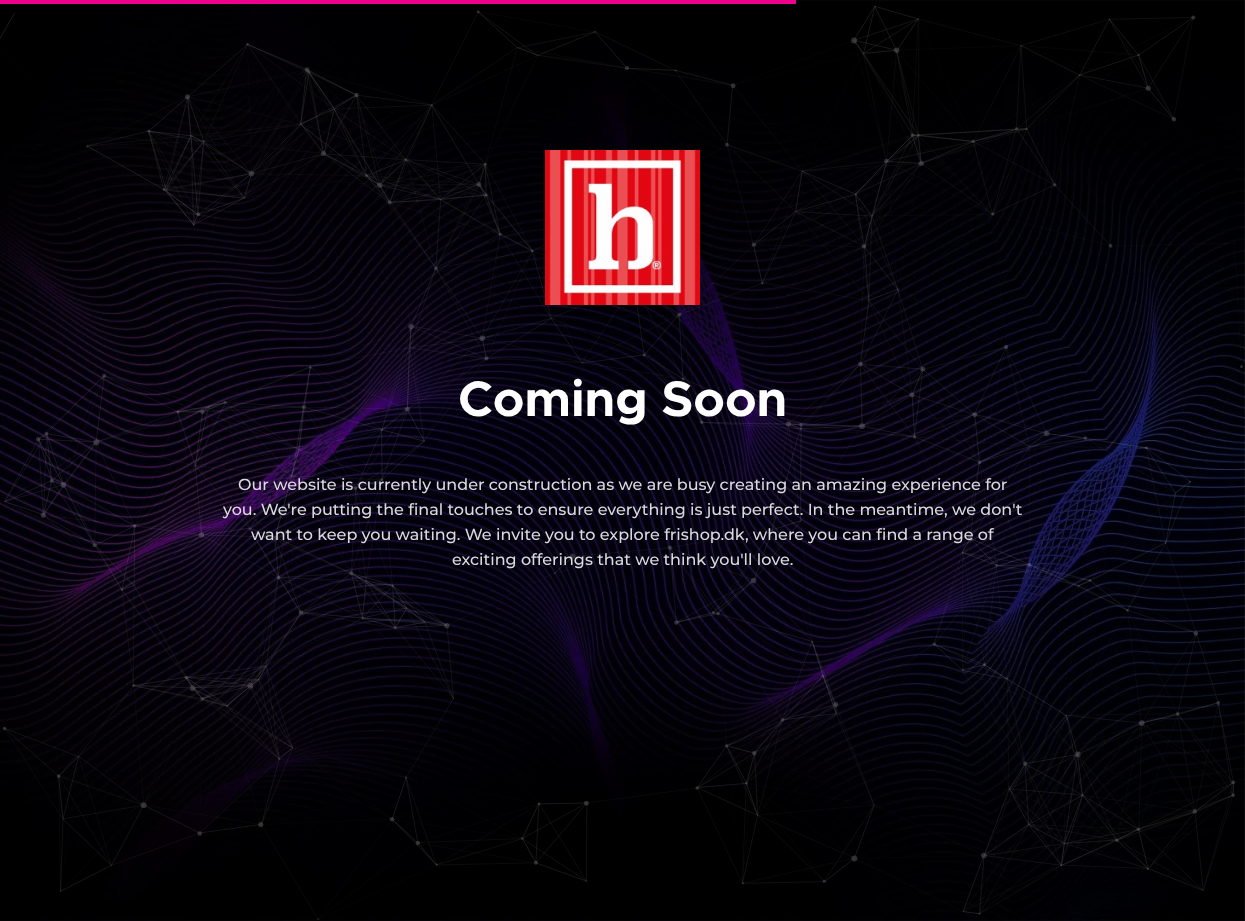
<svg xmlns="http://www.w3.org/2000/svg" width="1245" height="921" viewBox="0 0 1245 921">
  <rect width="100%" height="100%" fill="#fff"/>
  <image x="0" y="0" width="1245" height="921" href="img/1.png"/>
  <path d="M0 0h796v4H0z" fill="#ec008c"/>
  <image x="0" y="6" width="1243" height="914" href="img/2.png"/>
  <image x="545" y="150" width="155" height="155" href="img/3.png"/>
  <text x="458" y="416" font-family="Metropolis" font-size="50" font-weight="bold" fill="#fff">Coming Soon</text>
  <g font-family="Montserrat" font-size="16" font-weight="100" fill="#dad9dc">
    <text x="238" y="490">Our website is currently under construction as we are busy creating an amazing experience for</text>
    <text x="223" y="515">you. We're putting the final touches to ensure everything is just perfect. In the meantime, we don't</text>
    <text x="251" y="540">want to keep you waiting. We invite you to explore frishop.dk, where you can find a range of</text>
    <text x="452" y="565">exciting offerings that we think you'll love.</text>
  </g>
</svg>
